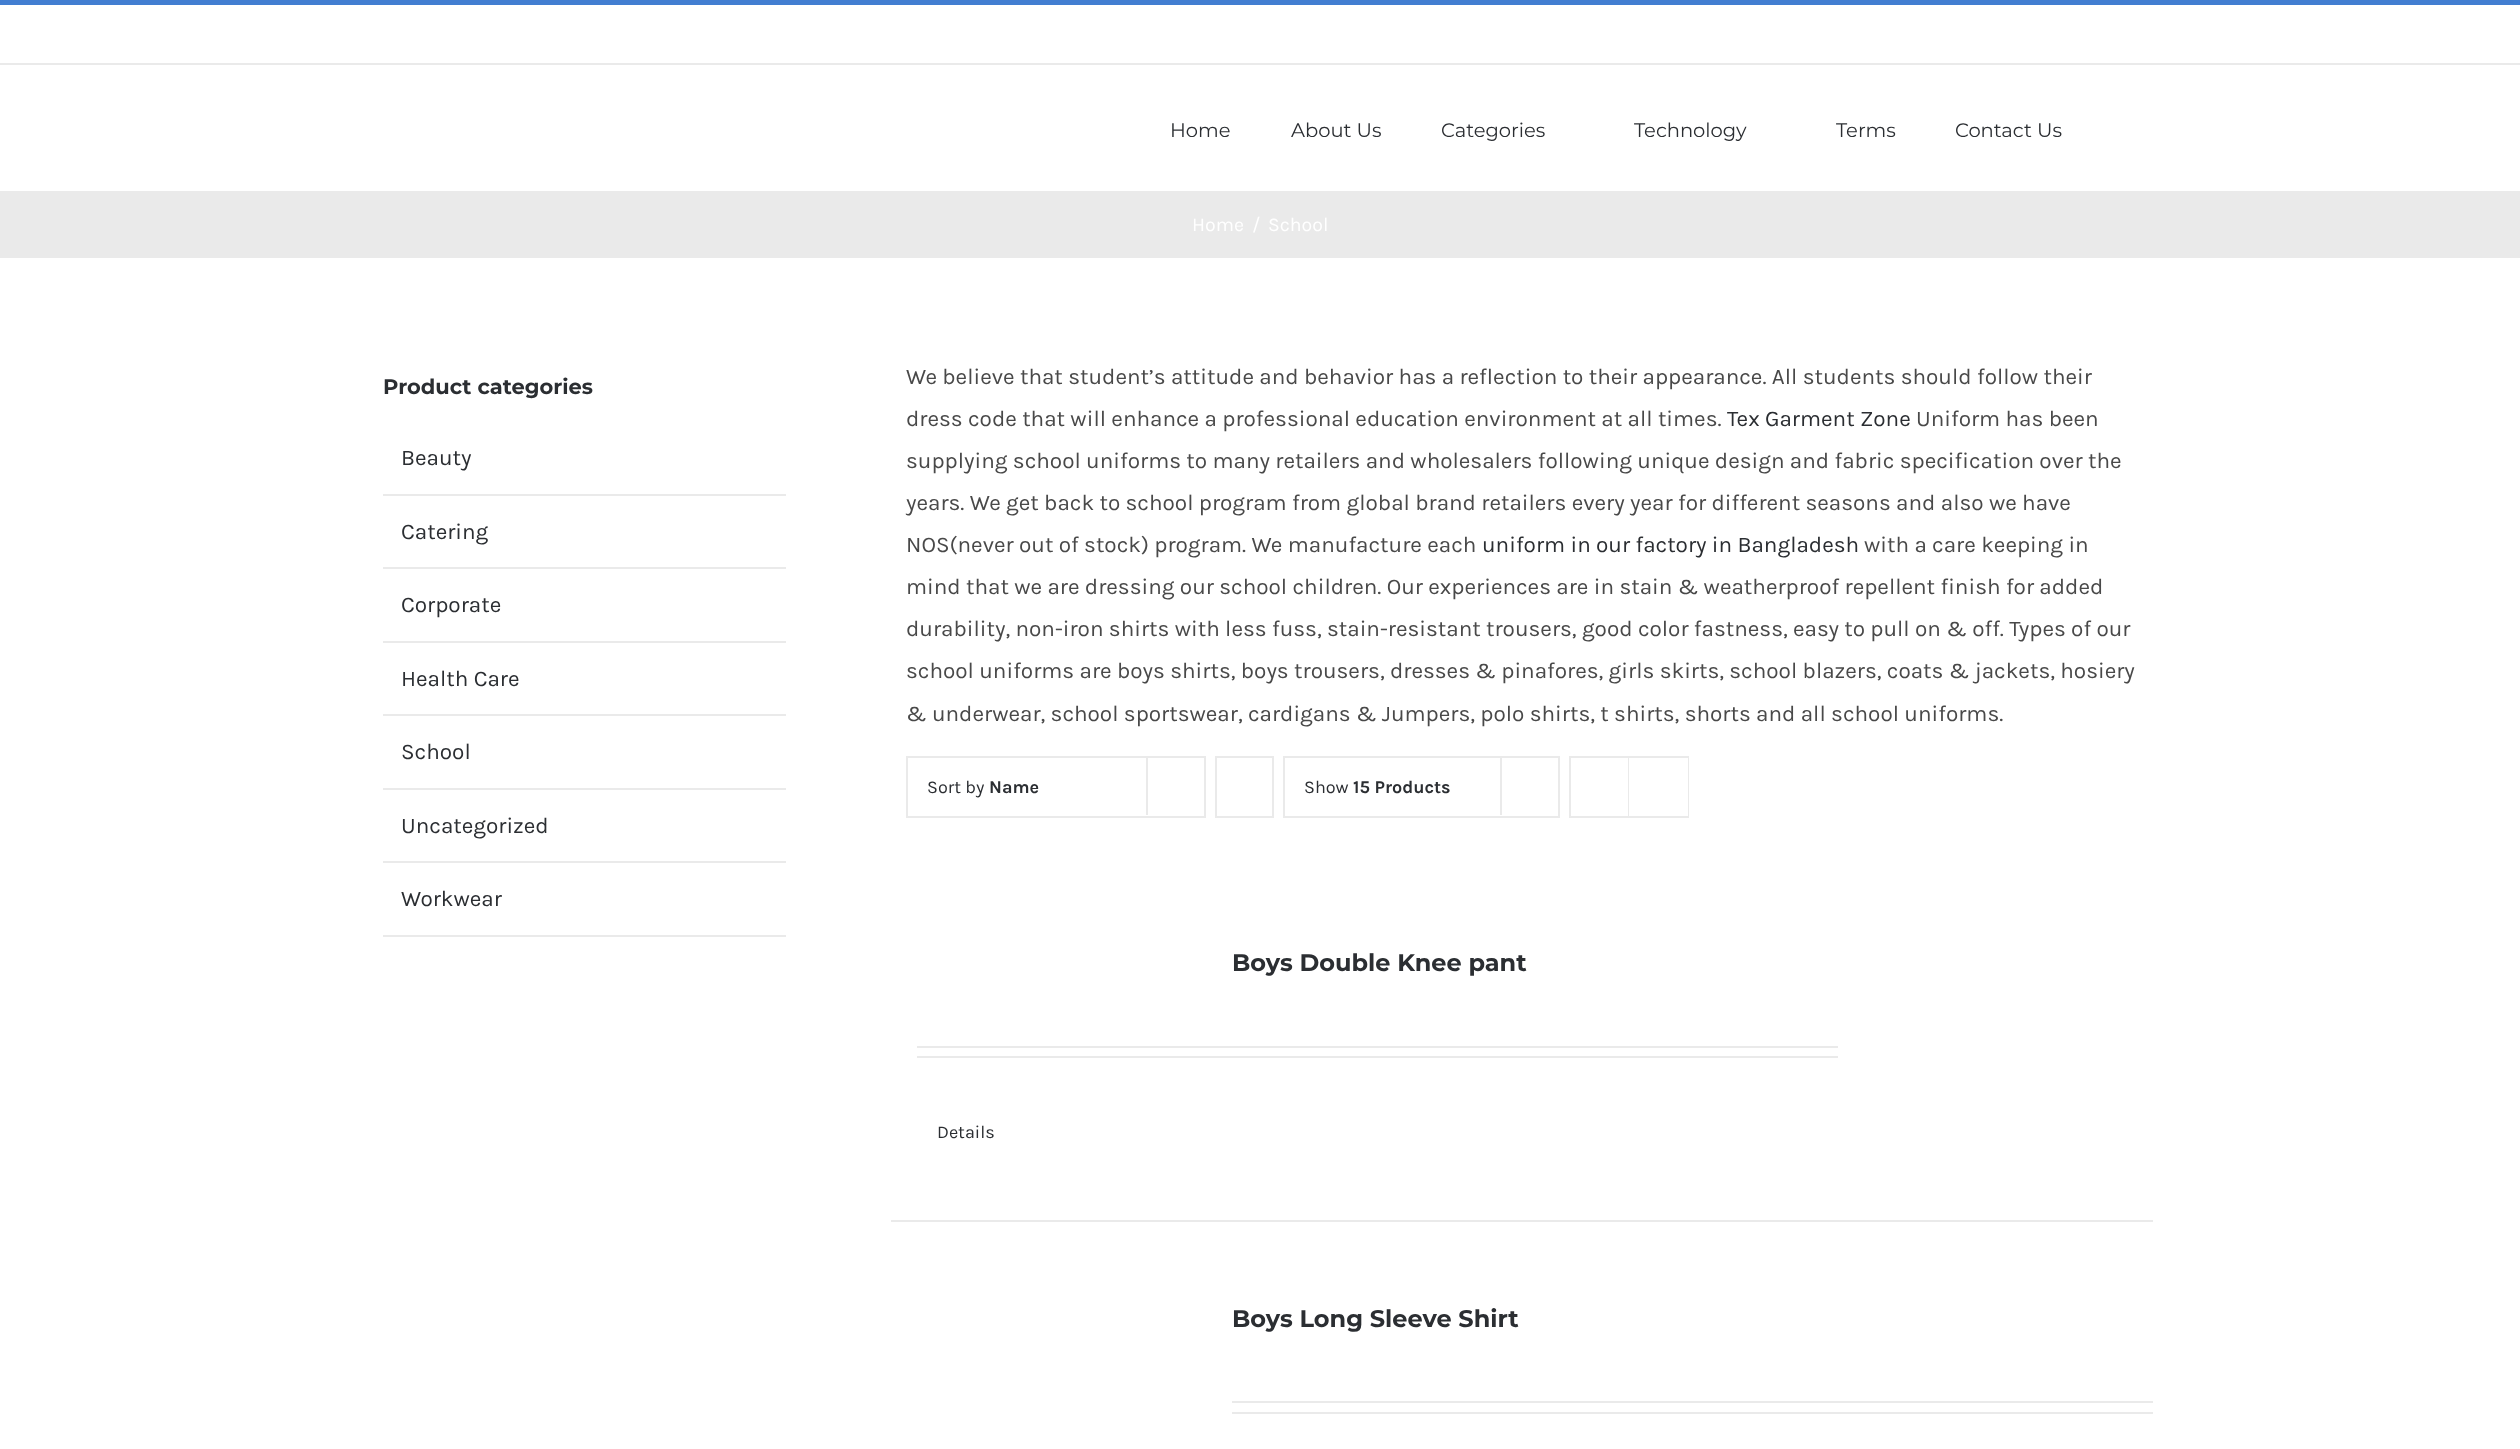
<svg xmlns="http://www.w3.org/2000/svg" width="2520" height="1449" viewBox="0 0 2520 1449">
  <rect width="100%" height="100%" fill="#fff"/>
  <path d="M0 0h2520v5H0z" fill="#427ed1"/>
  <path d="M0 63h2520v2H0z" fill="#eaeaea"/>
  <path d="M0 191h2520v67H0z" fill="#eaeaea"/>
  <path d="M383 494h403v2H383z" fill="#eaeaea"/>
  <path d="M383 567h403v2H383z" fill="#eaeaea"/>
  <path d="M383 641h403v2H383z" fill="#eaeaea"/>
  <path d="M383 714h403v2H383z" fill="#eaeaea"/>
  <path d="M383 788h403v2H383z" fill="#eaeaea"/>
  <path d="M383 861h403v2H383z" fill="#eaeaea"/>
  <path d="M383 935h403v2H383z" fill="#eaeaea"/>
  <path d="M907 757h298v60H907z" fill="none" stroke="#eaeaea" stroke-width="2"/>
  <path d="M1146 756h2v59H1146z" fill="#eaeaea"/>
  <path d="M1216 757h57v60H1216z" fill="none" stroke="#eaeaea" stroke-width="2"/>
  <path d="M1284 757h275v60H1284z" fill="none" stroke="#eaeaea" stroke-width="2"/>
  <path d="M1500 756h2v59H1500z" fill="#eaeaea"/>
  <path d="M1570 757h118v60H1570z" fill="none" stroke="#eaeaea" stroke-width="2"/>
  <path d="M1628 758h1v58H1628z" fill="#eaeaea"/>
  <path d="M1687 758h1v58H1687z" fill="#fff"/>
  <path d="M891 1220h1262v2H891z" fill="#eaeaea"/>
  <path d="M917 1046h921v2H917z" fill="#eaeaea"/>
  <path d="M917 1056h921v2H917z" fill="#eaeaea"/>
  <path d="M1232 1401h921v2H1232z" fill="#eaeaea"/>
  <path d="M1232 1412h921v2H1232z" fill="#eaeaea"/>
  <g font-family="Montserrat" font-size="19.5" fill="#2b2e32">
    <text x="1170" y="137">Home</text>
    <text x="1291" y="137">About Us</text>
    <text x="1441" y="137">Categories</text>
    <text x="1634" y="137">Technology</text>
    <text x="1836" y="137">Terms</text>
    <text x="1955" y="137">Contact Us</text>
  </g>
  <g font-family="Karla" font-size="19.5" fill="#fff">
    <text x="1192" y="231">Home</text>
    <text x="1252" y="231">/</text>
    <text x="1268" y="231">School</text>
  </g>
  <text x="383" y="394" font-family="Montserrat" font-size="21" font-weight="bold" fill="#2b2e32">Product categories</text>
  <g font-family="Karla" font-size="22.5" fill="#2b2e32">
    <text x="401" y="465">Beauty</text>
    <text x="401" y="539">Catering</text>
    <text x="401" y="612">Corporate</text>
    <text x="401" y="686">Health Care</text>
    <text x="401" y="759">School</text>
    <text x="401" y="833">Uncategorized</text>
    <text x="401" y="906">Workwear</text>
  </g>
  <g font-family="Karla" font-size="22.5" fill="#494949">
    <text x="906" y="384">We believe that student’s attitude and behavior has a reflection to their appearance. All students should follow their</text>
    <text x="906" y="426">dress code that will enhance a professional education environment at all times.</text>
  </g>
  <text x="1727" y="426" font-family="Karla" font-size="22.5" fill="#2b2e32">Tex Garment Zone</text>
  <g font-family="Karla" font-size="22.5" fill="#494949">
    <text x="1916" y="426">Uniform has been</text>
    <text x="906" y="468">supplying school uniforms to many retailers and wholesalers following unique design and fabric specification over the</text>
    <text x="906" y="510">years. We get back to school program from global brand retailers every year for different seasons and also we have</text>
    <text x="906" y="552">NOS(never out of stock) program. We manufacture each</text>
  </g>
  <text x="1482" y="552" font-family="Karla" font-size="22.5" fill="#2b2e32">uniform in our factory in Bangladesh</text>
  <g font-family="Karla" font-size="22.5" fill="#494949">
    <text x="1864" y="552">with a care keeping in</text>
    <text x="906" y="594">mind that we are dressing our school children. Our experiences are in stain &amp; weatherproof repellent finish for added</text>
    <text x="906" y="636">durability, non-iron shirts with less fuss, stain-resistant trousers, good color fastness, easy to pull on &amp; off. Types of our</text>
    <text x="906" y="678">school uniforms are boys shirts, boys trousers, dresses &amp; pinafores, girls skirts, school blazers, coats &amp; jackets, hosiery</text>
    <text x="906" y="721">&amp; underwear, school sportswear, cardigans &amp; Jumpers, polo shirts, t shirts, shorts and all school uniforms.</text>
  </g>
  <text x="927" y="793" font-family="Karla" font-size="18" fill="#2b2e32">Sort by</text>
  <text x="989" y="793" font-family="Karla" font-size="18" font-weight="bold" fill="#2b2e32">Name</text>
  <text x="1304" y="793" font-family="Karla" font-size="18" fill="#2b2e32">Show</text>
  <text x="1353" y="793" font-family="Karla" font-size="18" font-weight="bold" fill="#2b2e32">15 Products</text>
  <text x="1232" y="971" font-family="Montserrat" font-size="24" font-weight="bold" fill="#2b2e32">Boys Double Knee pant</text>
  <text x="937" y="1138" font-family="Karla" font-size="18" fill="#2b2e32">Details</text>
  <text x="1232" y="1327" font-family="Montserrat" font-size="24" font-weight="bold" fill="#2b2e32">Boys Long Sleeve Shirt</text>
</svg>
